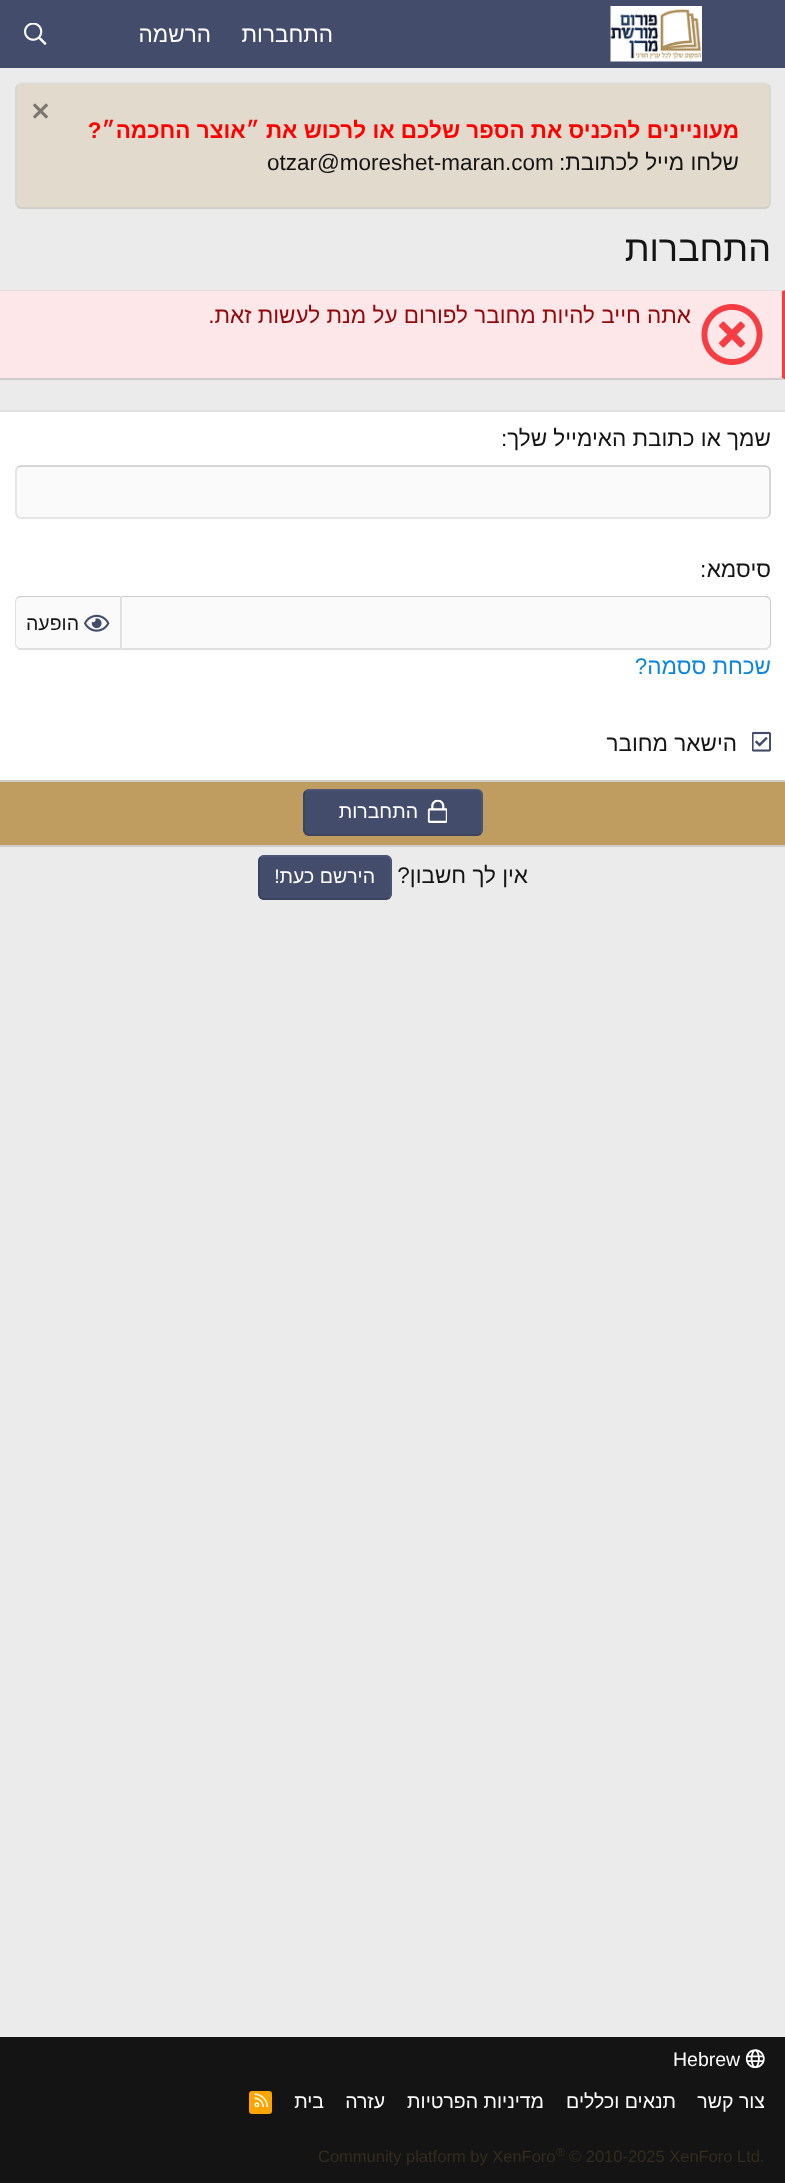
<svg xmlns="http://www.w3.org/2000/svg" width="785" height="2183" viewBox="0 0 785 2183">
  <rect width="100%" height="100%" fill="#ebebeb"/>
  <path d="M0 0h785v68H0z" fill="#444c6b"/>
  <image x="610" y="6" width="92" height="56" href="img/1.png"/>
  <image x="24" y="23" width="23" height="22" href="img/2.png"/>
  <rect x="15" y="83" width="756" height="126" rx="6" fill="#e2dacd"/>
  <path d="M17.5 85C18.5 84 19.5 83 21 83H765C766.5 83 767.5 84 768.5 85" fill="none" stroke="#e0e0e0" stroke-width="1.5"/>
  <path d="M768.5 85L770 88V203L768.5 206" fill="none" stroke="#d6d6d6" stroke-width="1.5"/>
  <path d="M768.5 206C767.5 207 766.5 208 765 208H21C19.5 208 18.5 207 17.5 206" fill="none" stroke="#ccc" stroke-width="1.5"/>
  <path d="M17.5 206L16 203V88L17.5 85" fill="none" stroke="#d6d6d6" stroke-width="1.5"/>
  <image x="33" y="103" width="15" height="16" href="img/3.png"/>
  <path d="M0 290h785v90H0z" fill="#fee7e8"/>
  <path d="M0 290H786L782 291H0Z" fill="#e0e0e0"/>
  <path d="M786 290V380L782 378V291Z" fill="#f53d43"/>
  <path d="M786 380H0V378H782Z" fill="#ccc"/>
  <image x="701" y="304" width="62" height="61" href="img/4.png"/>
  <path d="M0 412h785v368H0z" fill="#fff"/>
  <path d="M0 410h785v2H0z" fill="#e0e0e0"/>
  <path d="M0 845h785v2H0z" fill="#ccc"/>
  <rect x="15" y="465" width="756" height="54" rx="6" fill="#fafafa"/>
  <path d="M17.5 467.5C18.5 466.5 19.5 466 21 466H765C766.5 466 767.5 466.5 768.5 467.5C769.5 468.5 770 469.5 770 471V513C770 514.5 769.5 515.5 768.5 516.5" fill="none" stroke="#ccc" stroke-width="1.5"/>
  <path d="M768.5 516.5C767.5 517.5 766.5 518 765 518H21C19.5 518 18.5 517.5 17.5 516.5C16.5 515.5 16 514.5 16 513V471C16 469.5 16.5 468.5 17.5 467.5" fill="none" stroke="#e0e0e0" stroke-width="1.5"/>
  <path d="M122 596H765C768.5 596 771 598.5 771 602V644C771 647.5 768.5 650 765 650H122Z" fill="#fafafa"/>
  <path d="M122 596H765C766 596 768 596 769 597L768 598L765 597H122Z" fill="#ccc"/>
  <path d="M769 597C770 598 771 600 771 602V644C771 645 770 647 769 648L768 647C769 646 770 645 770 644V602C770 600 769 599 768 598Z" fill="#ccc"/>
  <path d="M767 650H122V648H765L768 647L769 648Z" fill="#e0e0e0"/>
  <path d="M21 596H122V650H21C17.5 650 15 647.5 15 644V602C15 598.5 17.5 596 21 596Z" fill="#fafafa"/>
  <path d="M21 596C20 596 18 596 17 597L18 598L21 597H120L121 596Z" fill="#ccc"/>
  <path d="M122 596L120 597V648L122 650Z" fill="#e0e0e0"/>
  <path d="M122 650H19L17 648L18 647C19 648 20 648 21 648H120Z" fill="#e0e0e0"/>
  <path d="M15 602V644C15 645 16 647 17 648L18 647C17 646 16 645 16 644V602C16 600 17 599 18 598L17 597C16 598 15 600 15 602Z" fill="#e0e0e0"/>
  <image x="84" y="614" width="26" height="18" href="img/5.png"/>
  <image x="752" y="731" width="19" height="21" href="img/6.png"/>
  <path d="M0 782h785v63H0z" fill="#bf9d60"/>
  <path d="M0 780h785v2H0z" fill="#ccc"/>
  <rect x="303" y="789" width="180" height="47" rx="6" fill="#444c6b"/>
  <path d="M305.5 791.5C306.5 790.5 307.5 790 309 790H477C478.5 790 479.5 790.5 480.5 791.5C481.5 792.5 482 793.5 482 795V829.5C482 831 481.5 832 480.5 833" fill="none" stroke="#4e577b" stroke-width="1.5"/>
  <path d="M480.5 833C479.5 834 478.5 835 477 835H309C307.5 835 306.5 834 305.5 833C304.5 832 304 831 304 829.5V795C304 793.5 304.5 792.5 305.5 791.5" fill="none" stroke="#3a415b" stroke-width="1.5"/>
  <image x="427" y="799" width="20" height="24" href="img/7.png"/>
  <rect x="258" y="855" width="134" height="45" rx="6" fill="#444c6b"/>
  <path d="M260.5 857.5C261.5 856.5 262.5 856 264 856H385.5C387 856 388 856.5 389 857.5C390 858.5 391 859.5 391 861V894C391 895.5 390 896.5 389 897.5" fill="none" stroke="#4e577b" stroke-width="1.5"/>
  <path d="M389 897.5C388 898.5 387 899 385.5 899H264C262.5 899 261.5 898.5 260.5 897.5C259.5 896.5 259 895.5 259 894V861C259 859.5 259.5 858.5 260.5 857.5" fill="none" stroke="#3a415b" stroke-width="1.5"/>
  <path d="M0 2037h785v146H0z" fill="#141414"/>
  <image x="745" y="2049" width="20" height="20" href="img/8.png"/>
  <rect x="249" y="2091" width="23" height="23" rx="3" fill="#ffa500"/>
  <image x="254" y="2093" width="15" height="14" href="img/9.png"/>
  <g font-family="Liberation Sans" font-size="22.5" direction="rtl" fill="#fff">
    <text x="333" y="42">התחברות</text>
    <text x="211" y="42">הרשמה</text>
  </g>
  <text x="739" y="138" font-family="Liberation Sans" font-size="22.5" font-weight="bold" direction="rtl" fill="#f00">מעוניינים להכניס את הספר שלכם או לרכוש את ״אוצר החכמה״?</text>
  <text x="739" y="170" font-family="Liberation Sans" font-size="22.5" direction="rtl" fill="#141414">שלחו מייל לכתובת:</text>
  <text x="267" y="170" font-family="Liberation Sans" font-size="22.5" fill="#141414">otzar@moreshet-maran.com</text>
  <text x="771" y="261" font-family="Liberation Sans" font-size="36" direction="rtl" fill="#141414">התחברות</text>
  <text x="691" y="323" font-family="Liberation Sans" font-size="22.5" direction="rtl" fill="#91080c">אתה חייב להיות מחובר לפורום על מנת לעשות זאת.</text>
  <text x="771" y="446" font-family="Liberation Sans" font-size="22.5" direction="rtl" fill="#141414">שמך או כתובת האימייל שלך</text>
  <text x="501" y="446" font-family="Liberation Sans" font-size="22.5" fill="#141414">:</text>
  <text x="771" y="577" font-family="Liberation Sans" font-size="22.5" direction="rtl" fill="#141414">סיסמא</text>
  <text x="700" y="577" font-family="Liberation Sans" font-size="22.5" fill="#141414">:</text>
  <text x="79" y="630" font-family="Liberation Sans" font-size="19.5" direction="rtl" fill="#141414">הופעה</text>
  <text x="771" y="674" font-family="Liberation Sans" font-size="22.5" direction="rtl" fill="#0b86d9">שכחת ססמה?</text>
  <text x="737" y="751" font-family="Liberation Sans" font-size="22.5" direction="rtl" fill="#141414">הישאר מחובר</text>
  <text x="418" y="818" font-family="Liberation Sans" font-size="19.5" direction="rtl" fill="#fff">התחברות</text>
  <text x="528" y="883" font-family="Liberation Sans" font-size="22.5" direction="rtl" fill="#141414">אין לך חשבון?</text>
  <text x="375" y="883" font-family="Liberation Sans" font-size="19.5" direction="rtl" fill="#fff">הירשם כעת!</text>
  <text x="673" y="2066" font-family="Liberation Sans" font-size="19.5" fill="#fff">Hebrew</text>
  <g font-family="Liberation Sans" font-size="19.5" direction="rtl" fill="#fff">
    <text x="765" y="2108">צור קשר</text>
    <text x="676" y="2108">תנאים וכללים</text>
    <text x="544" y="2108">מדיניות הפרטיות</text>
    <text x="385" y="2108">עזרה</text>
    <text x="324" y="2108">בית</text>
  </g>
  <text x="569" y="2162" font-family="Liberation Sans" font-size="16.5" fill="#332c1f">© 2010-2025 XenForo Ltd.</text>
  <text x="556" y="2156" font-family="Liberation Sans" font-size="12" fill="#332c1f">®</text>
  <text x="318" y="2162" font-family="Liberation Sans" font-size="16.5" fill="#332c1f">Community platform by XenForo</text>
</svg>
